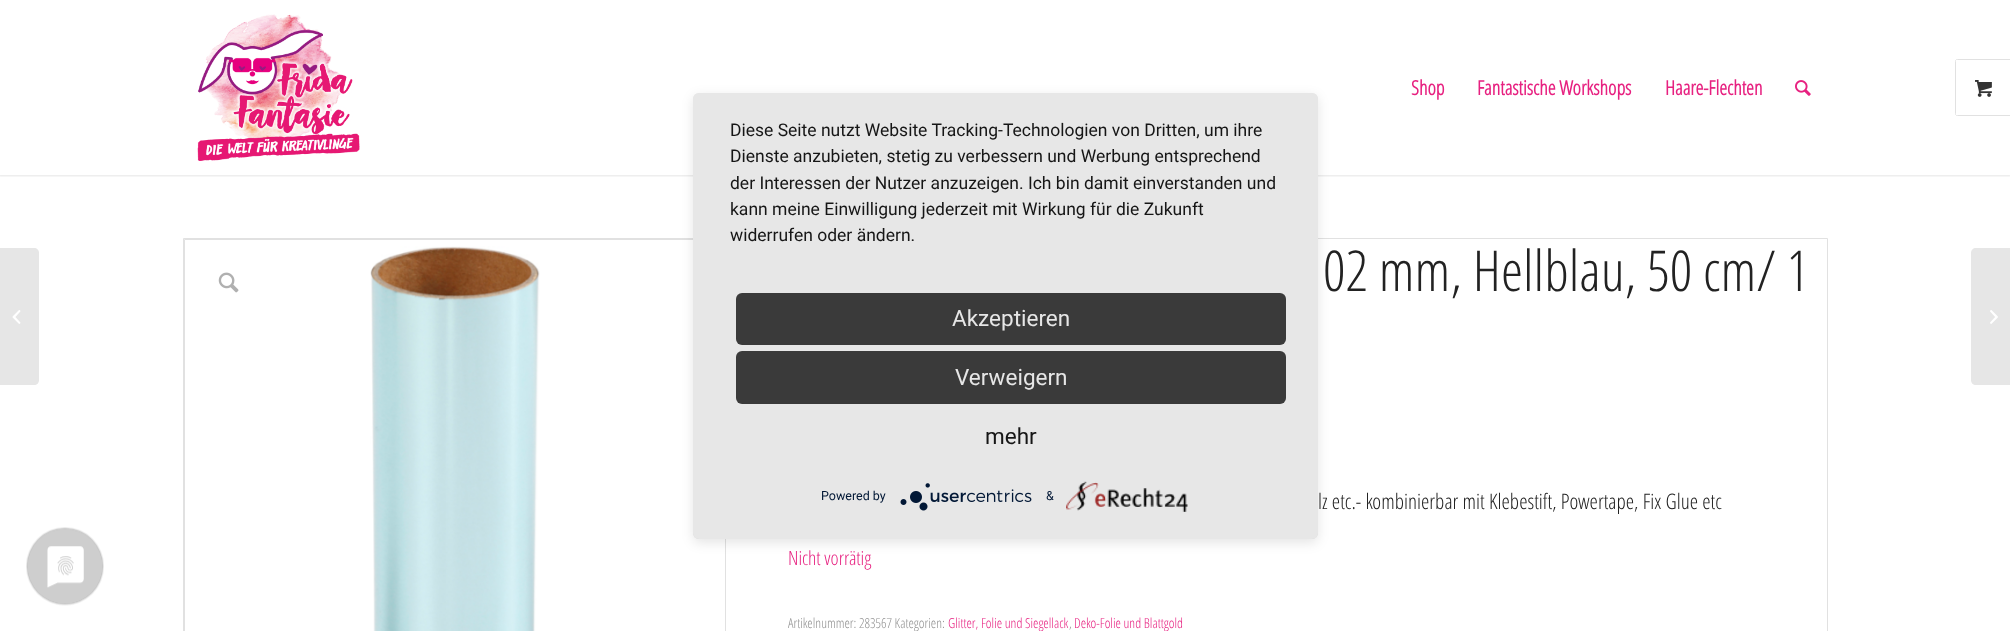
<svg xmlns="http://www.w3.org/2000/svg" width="2010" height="631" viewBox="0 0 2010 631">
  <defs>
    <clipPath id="clip1"><path d="M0 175h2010v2H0z"/></clipPath>
    <clipPath id="clip2"><rect x="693" y="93" width="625" height="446" rx="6"/></clipPath>
  </defs>
  <rect width="100%" height="100%" fill="#fff"/>
  <g clip-path="url(#clip1)">
    <path d="M-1 -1h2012v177H-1z" fill="#0000001a" filter="blur(1px)"/>
  </g>
  <image x="197" y="14" width="163" height="147" href="img/1.png"/>
  <image x="1795" y="80" width="16" height="16" href="img/2.png"/>
  <rect x="1955.5" y="59.5" width="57" height="56" rx="2" fill="none" stroke="#e1e1e1"/>
  <path d="M1956 60h1v55H1956z" fill="#fff"/>
  <image x="1975" y="80" width="17" height="17" href="img/3.png"/>
  <path d="M0 248H34C37 248 39 250 39 253V380C39 383 37 385 34 385H0Z" fill="#e6e6e6"/>
  <image x="12" y="310" width="9" height="14" href="img/4.png"/>
  <path d="M183.5 238.5h1644v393H183.5z" fill="none" stroke="#e1e1e1"/>
  <path d="M184.5 239.5h541v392H184.5z" fill="none" stroke="#e1e1e1"/>
  <image x="370" y="246" width="170" height="385" href="img/5.png"/>
  <image x="218" y="272" width="21" height="21" href="img/6.png"/>
  <path d="M1976 248H2010V385H1976C1973 385 1971 383 1971 380V253C1971 250 1973 248 1976 248Z" fill="#e6e6e6"/>
  <image x="1990" y="310" width="8" height="14" href="img/7.png"/>
  <rect x="693" y="96" width="625" height="447" rx="6" fill="#0000001a" filter="blur(6px)"/>
  <g clip-path="url(#clip2)">
    <path d="M693 100h625v446H693z" fill="#0000004d" filter="blur(22.5px)"/>
  </g>
  <rect x="693" y="93" width="625" height="446" rx="6" fill="#e7e7e7"/>
  <rect x="736" y="293" width="550" height="52" rx="6" fill="#3a3a3a"/>
  <rect x="736" y="351" width="550" height="53" rx="6" fill="#3a3a3a"/>
  <image x="900" y="483" width="132" height="28" href="img/8.png"/>
  <image x="1066" y="481" width="122" height="31" href="img/9.png"/>
  <image x="26" y="527" width="78" height="79" href="img/10.png"/>
  <g font-family="Open Sans" font-size="20" font-weight="bold" fill="#e72180">
    <text x="1411" y="95">Shop</text>
    <text x="1477" y="95">Fantastische Workshops</text>
    <text x="1665" y="95">Haare-Flechten</text>
  </g>
  <text x="1323" y="291" word-spacing="0.25" font-family="Open Sans" font-size="56.25" font-weight="300" fill="#222">02 mm, Hellblau, 50 cm/ 1</text>
  <text x="1318" y="509" word-spacing="0.25" font-family="Open Sans" font-size="21.25" font-weight="300" fill="#222">lz etc.- kombinierbar mit Klebestift, Powertape, Fix Glue etc</text>
  <text x="788" y="565" font-family="Open Sans" font-size="19.5" font-weight="300" fill="#e72180">Nicht vorrätig</text>
  <text x="788" y="628" font-family="Open Sans" font-size="13.75" font-weight="300" fill="#919191">Artikelnummer: 283567 Kategorien:</text>
  <text x="948" y="628" font-family="Open Sans" font-size="13.75" font-weight="300" fill="#e72180">Glitter, Folie und Siegellack</text>
  <text x="1069" y="628" font-family="Open Sans" font-size="13.75" font-weight="300" fill="#919191">,</text>
  <text x="1074" y="628" font-family="Open Sans" font-size="13.75" font-weight="300" fill="#e72180">Deko-Folie und Blattgold</text>
  <g font-family="Roboto" font-size="17.5" fill="#161616">
    <text x="730" y="136">Diese Seite nutzt Website Tracking-Technologien von Dritten, um ihre</text>
    <text x="730" y="162">Dienste anzubieten, stetig zu verbessern und Werbung entsprechend</text>
    <text x="730" y="189">der Interessen der Nutzer anzuzeigen. Ich bin damit einverstanden und</text>
    <text x="730" y="215">kann meine Einwilligung jederzeit mit Wirkung für die Zukunft</text>
    <text x="730" y="241">widerrufen oder ändern.</text>
  </g>
  <g font-family="Roboto" font-size="22.5" fill="#e6e6e6">
    <text x="952" y="326">Akzeptieren</text>
    <text x="955" y="385">Verweigern</text>
  </g>
  <text x="985" y="444" font-family="Roboto" font-size="22.5" fill="#161616">mehr</text>
  <g font-family="Roboto" font-size="12.5" fill="#021836">
    <text x="821" y="500">Powered by</text>
    <text x="1046" y="500">&amp;</text>
  </g>
</svg>
